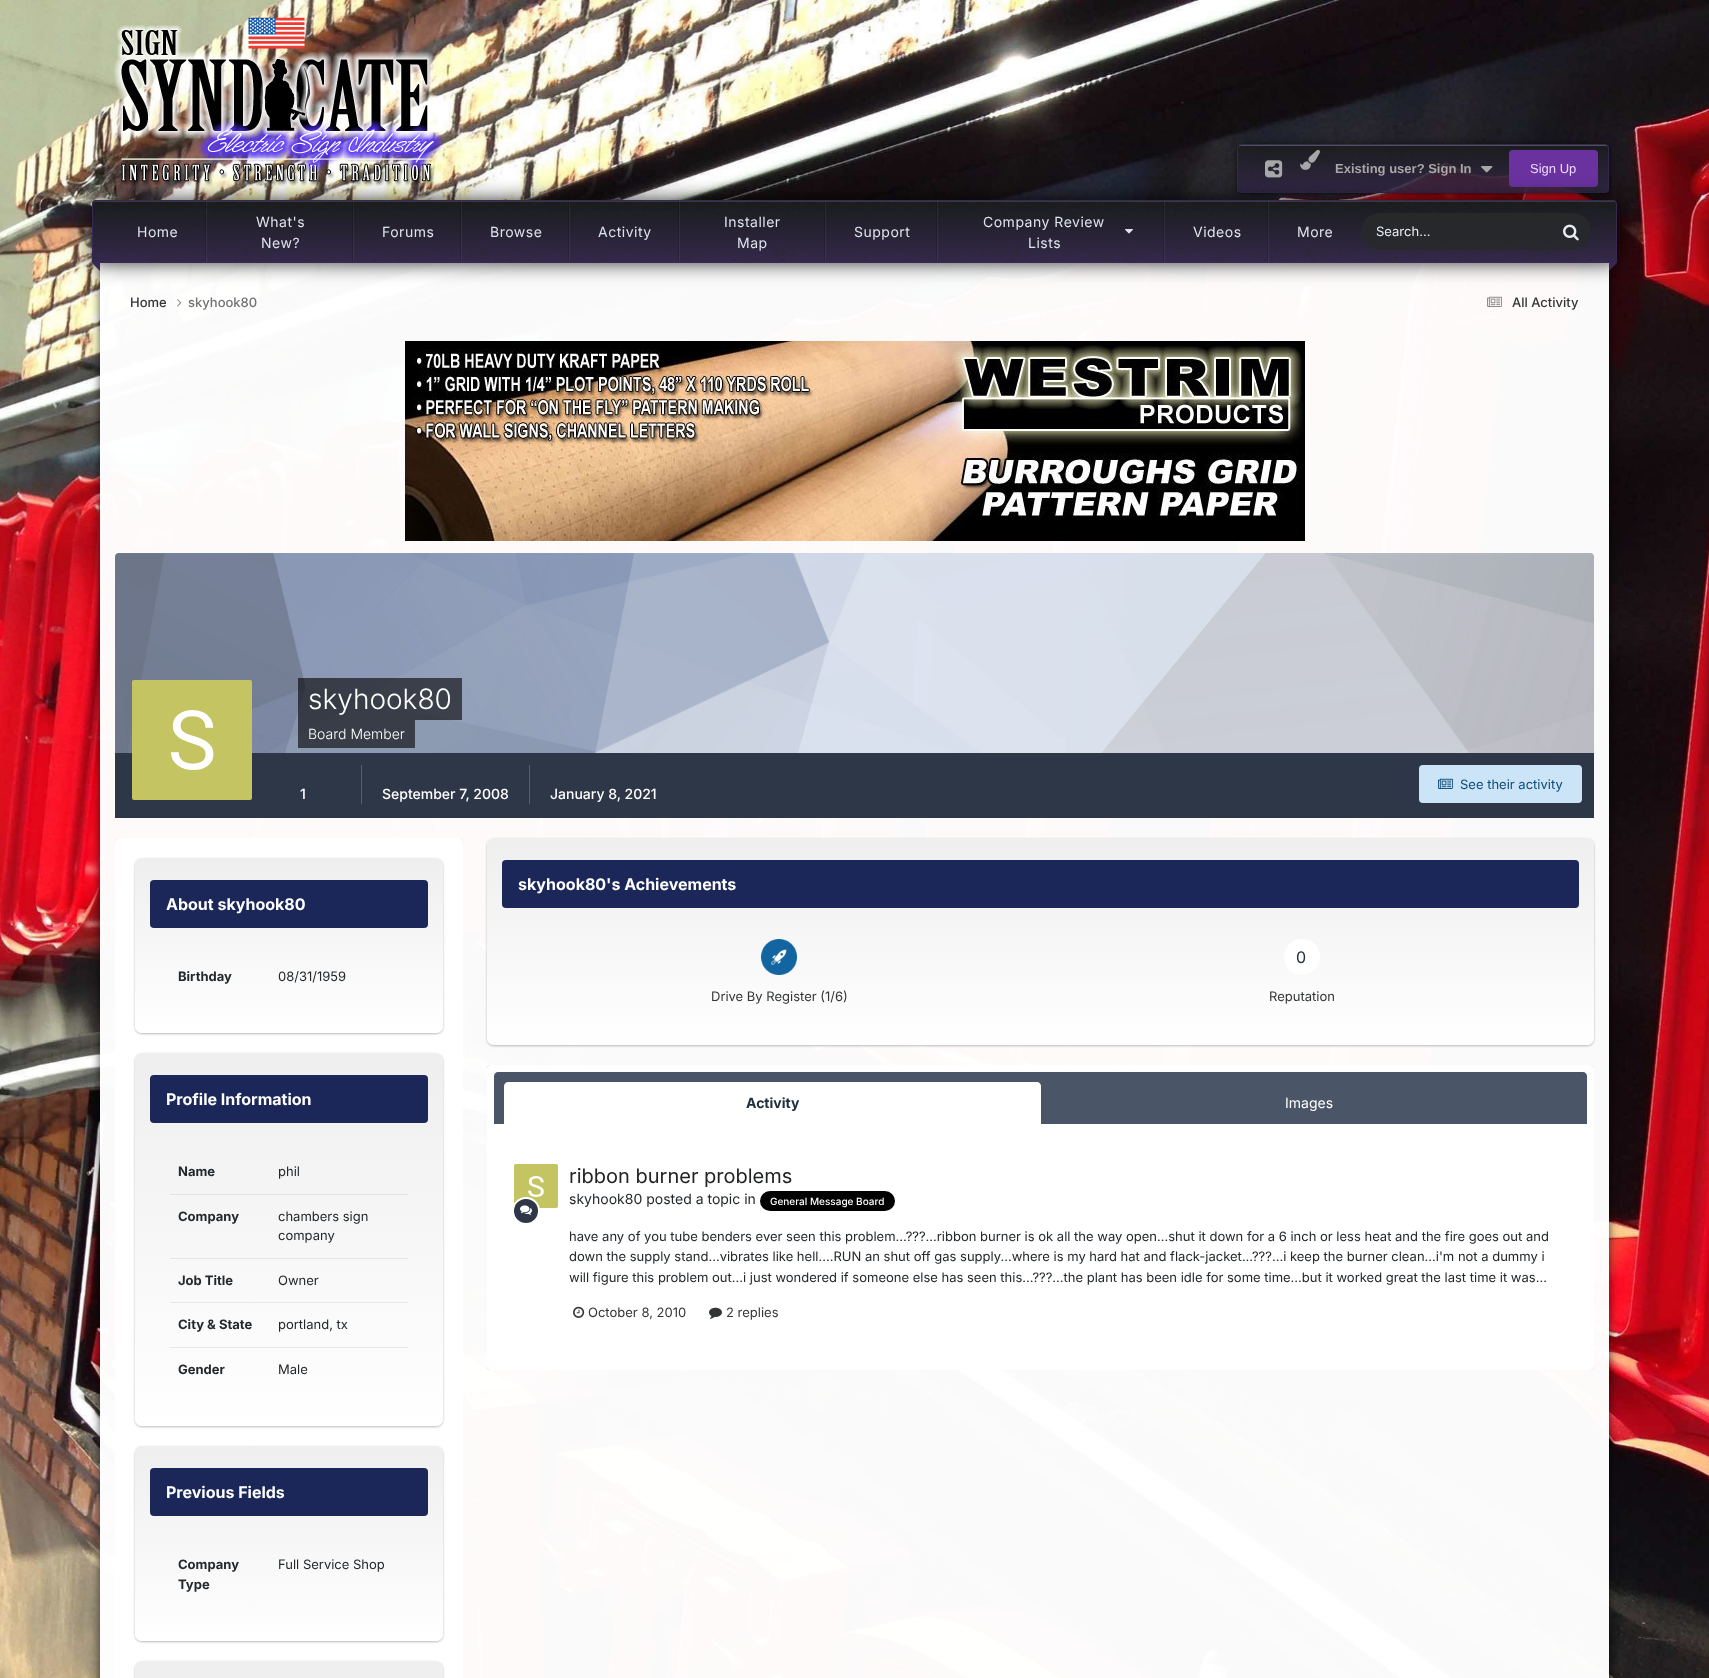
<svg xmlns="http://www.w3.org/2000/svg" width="1709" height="1678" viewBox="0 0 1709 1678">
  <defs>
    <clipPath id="clip1"><path d="M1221 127H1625V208H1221ZM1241 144H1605C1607 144 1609 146 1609 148V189C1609 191 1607 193 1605 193H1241C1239 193 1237 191 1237 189V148C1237 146 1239 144 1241 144Z" clip-rule="evenodd"/></clipPath>
    <clipPath id="clip2"><path d="M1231 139H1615V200H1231ZM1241 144H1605C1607 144 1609 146 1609 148V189C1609 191 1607 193 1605 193H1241C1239 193 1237 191 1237 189V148C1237 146 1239 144 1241 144Z" clip-rule="evenodd"/></clipPath>
    <clipPath id="clip3"><path d="M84 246H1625V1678H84ZM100 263H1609V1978H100Z" clip-rule="evenodd"/></clipPath>
    <linearGradient id="g1" gradientUnits="userSpaceOnUse" x1="289" y1="1033" x2="289" y2="858"><stop offset="0" stop-color="#fff" stop-opacity="0.97"/><stop offset="1" stop-color="#eee" stop-opacity="0.97"/></linearGradient>
    <linearGradient id="g2" gradientUnits="userSpaceOnUse" x1="289" y1="1426" x2="289" y2="1053"><stop offset="0" stop-color="#fff" stop-opacity="0.97"/><stop offset="1" stop-color="#eee" stop-opacity="0.97"/></linearGradient>
    <linearGradient id="g3" gradientUnits="userSpaceOnUse" x1="289" y1="1641" x2="289" y2="1446"><stop offset="0" stop-color="#fff" stop-opacity="0.97"/><stop offset="1" stop-color="#eee" stop-opacity="0.97"/></linearGradient>
    <linearGradient id="g4" gradientUnits="userSpaceOnUse" x1="289" y1="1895" x2="289" y2="1661"><stop offset="0" stop-color="#fff" stop-opacity="0.97"/><stop offset="1" stop-color="#eee" stop-opacity="0.97"/></linearGradient>
    <linearGradient id="g5" gradientUnits="userSpaceOnUse" x1="1041" y1="1045" x2="1041" y2="838"><stop offset="0" stop-color="#fff" stop-opacity="0.97"/><stop offset="1" stop-color="#eee" stop-opacity="0.97"/></linearGradient>
  </defs>
  <rect width="100%" height="100%" fill="#fff"/>
  <image x="0" y="0" width="1709" height="1678" href="img/1.png"/>
  <image x="113" y="17" width="331" height="169" href="img/2.png"/>
  <g clip-path="url(#clip1)">
    <rect x="1237" y="143" width="372" height="49" rx="4" fill="#0000005e" filter="blur(5px)"/>
  </g>
  <g clip-path="url(#clip2)">
    <rect x="1237" y="145" width="372" height="49" rx="4" fill="#0000005e" filter="blur(1.5px)"/>
  </g>
  <image x="1237" y="144" width="372" height="49" href="img/3.png"/>
  <path d="M1241 146H1605C1607 146 1608 147 1608 149C1608 147 1607 145 1605 145H1241L1239 146L1238 149C1238 147 1239 146 1241 146Z" fill="#e1e1e145"/>
  <rect x="1237.5" y="144.5" width="371" height="48" rx="3.5" fill="none" stroke="#372953f7"/>
  <image x="1265" y="160" width="18" height="18" href="img/4.png"/>
  <image x="1300" y="149" width="20" height="21" href="img/5.png"/>
  <image x="1481" y="166" width="12" height="7" href="img/6.png"/>
  <rect x="1509" y="150" width="89" height="37" rx="4" fill="#6a329f"/>
  <g clip-path="url(#clip3)">
    <path d="M100 262h1509v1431H100z" fill="#000000ab" filter="blur(5px)"/>
  </g>
  <path d="M100 263h1509v1415H100z" fill="#fffffffa"/>
  <rect x="92" y="200" width="1525" height="63" rx="4" fill="#000000cc" filter="blur(10px)"/>
  <image x="92" y="200" width="1525" height="62" href="img/7.png"/>
  <path d="M96 202H1613C1615 202 1616 203 1616 205V204C1616 202 1615 201 1613 201H96C94 201 93 202 93 204V205C93 203 94 202 96 202Z" fill="#e1e1e126"/>
  <path d="M96 200.5H1613C1615 200.5 1616.5 202 1616.5 204V262.5H92.5V204C92.5 202 94 200.5 96 200.5Z" fill="none" stroke="#372953"/>
  <path d="M206 201h1v61H206z" fill="#e1e1e112"/>
  <path d="M205 201h1v61H205z" fill="#0000002b"/>
  <path d="M353 201h1v61H353z" fill="#e1e1e112"/>
  <path d="M352 201h1v61H352z" fill="#0000002b"/>
  <path d="M461 201h1v61H461z" fill="#e1e1e112"/>
  <path d="M460 201h1v61H460z" fill="#0000002b"/>
  <path d="M569 201h1v61H569z" fill="#e1e1e112"/>
  <path d="M568 201h1v61H568z" fill="#0000002b"/>
  <path d="M679 201h1v61H679z" fill="#e1e1e112"/>
  <path d="M678 201h1v61H678z" fill="#0000002b"/>
  <path d="M825 201h1v61H825z" fill="#e1e1e112"/>
  <path d="M824 201h1v61H824z" fill="#0000002b"/>
  <path d="M937 201h1v61H937z" fill="#e1e1e112"/>
  <path d="M936 201h1v61H936z" fill="#0000002b"/>
  <path d="M1164 201h1v61H1164z" fill="#e1e1e112"/>
  <path d="M1163 201h1v61H1163z" fill="#0000002b"/>
  <image x="1125" y="229" width="8" height="5" href="img/8.png"/>
  <path d="M1268 201h1v61H1268z" fill="#e1e1e112"/>
  <path d="M1267 201h1v61H1267z" fill="#0000002b"/>
  <rect x="1361" y="213" width="230" height="37" rx="18.5" fill="#27292ade"/>
  <image x="1563" y="224" width="16" height="17" href="img/9.png"/>
  <path d="M92 263H100V271Z" fill="#372953"/>
  <path d="M1609 263H1617L1609 271Z" fill="#372953"/>
  <image x="177" y="299" width="5" height="8" href="img/10.png"/>
  <image x="1487" y="296" width="15" height="11" href="img/11.png"/>
  <image x="405" y="341" width="900" height="200" href="img/12.png"/>
  <path d="M119 553H1590C1592 553 1594 555 1594 557V753H115V557C115 555 117 553 119 553Z" fill="#9bf"/>
  <image x="115" y="553" width="1479" height="200" href="img/13.png"/>
  <path d="M115 753h1479v65H115z" fill="#2d3748"/>
  <image x="132" y="680" width="120" height="120" href="img/14.png"/>
  <path d="M298 678h164v42H298z" fill="#00000099"/>
  <path d="M298 720h117v28H298z" fill="#00000099"/>
  <rect x="1419" y="765" width="163" height="38" rx="4" fill="#cbe4f7"/>
  <image x="1438" y="778" width="15" height="11" href="img/15.png"/>
  <path d="M361 765h1v39H361z" fill="#575f6d"/>
  <path d="M529 765h1v39H529z" fill="#575f6d"/>
  <rect x="115" y="838" width="348" height="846" rx="4" fill="#00000045" filter="blur(0.5px)"/>
  <rect x="115" y="838" width="348" height="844" rx="4" fill="#fff"/>
  <rect x="135" y="859" width="308" height="175" rx="7" fill="#00000045" filter="blur(1px)"/>
  <rect x="135" y="858" width="308" height="175" rx="7" fill="#fff"/>
  <rect x="135" y="858" width="308" height="175" rx="7" fill="url(#g1)"/>
  <rect x="150" y="880" width="278" height="48" rx="4" fill="#1a2758"/>
  <rect x="135" y="1054" width="308" height="373" rx="7" fill="#00000045" filter="blur(1px)"/>
  <rect x="135" y="1053" width="308" height="373" rx="7" fill="#fff"/>
  <rect x="135" y="1053" width="308" height="373" rx="7" fill="url(#g2)"/>
  <rect x="150" y="1075" width="278" height="48" rx="4" fill="#1a2758"/>
  <path d="M170 1194h238v1H170z" fill="#e2e2e2"/>
  <path d="M170 1258h238v1H170z" fill="#e4e5e5"/>
  <path d="M170 1302h238v1H170z" fill="#e6e6e6"/>
  <path d="M170 1347h238v1H170z" fill="#e8e8e8"/>
  <rect x="135" y="1447" width="308" height="195" rx="7" fill="#00000045" filter="blur(1px)"/>
  <rect x="135" y="1446" width="308" height="195" rx="7" fill="#fff"/>
  <rect x="135" y="1446" width="308" height="195" rx="7" fill="url(#g3)"/>
  <rect x="150" y="1468" width="278" height="48" rx="4" fill="#1a2758"/>
  <rect x="135" y="1662" width="308" height="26" rx="7" fill="#00000045" filter="blur(1px)"/>
  <rect x="135" y="1661" width="308" height="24" rx="7" fill="#fff"/>
  <rect x="135" y="1661" width="308" height="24" rx="7" fill="url(#g4)"/>
  <rect x="487" y="839" width="1107" height="207" rx="7" fill="#00000045" filter="blur(1px)"/>
  <rect x="487" y="838" width="1107" height="207" rx="7" fill="#fff"/>
  <rect x="487" y="838" width="1107" height="207" rx="7" fill="url(#g5)"/>
  <rect x="502" y="860" width="1077" height="48" rx="4" fill="#1a2758"/>
  <image x="761" y="939" width="36" height="36" href="img/16.png"/>
  <circle cx="1302" cy="957" r="18" fill="#fff"/>
  <rect x="487" y="1065" width="1107" height="305" rx="4" fill="#00000045" filter="blur(0.5px)"/>
  <rect x="487" y="1065" width="1107" height="305" rx="4" fill="#fff"/>
  <path d="M498 1072H1583C1585 1072 1587 1074 1587 1076V1124H494V1076C494 1074 496 1072 498 1072Z" fill="#4a5568"/>
  <path d="M508 1082H1037C1039 1082 1041 1084 1041 1086V1124H504V1086C504 1084 506 1082 508 1082Z" fill="#fff"/>
  <image x="514" y="1164" width="44" height="44" href="img/17.png"/>
  <rect x="760" y="1191" width="135" height="20" rx="10" fill="#000"/>
  <circle cx="526" cy="1211" r="13" fill="none" stroke="#fff" stroke-width="2"/>
  <circle cx="526" cy="1211" r="12" fill="#2d3748"/>
  <image x="520" y="1205" width="12" height="10" href="img/18.png"/>
  <image x="573" y="1306" width="12" height="12" href="img/19.png"/>
  <image x="709" y="1307" width="13" height="12" href="img/20.png"/>
  <text x="1335" y="173" font-family="Liberation Sans" font-size="13" font-weight="bold" fill="#a7a7a7">Existing user? Sign In</text>
  <text x="1530" y="173" font-family="Liberation Sans" font-size="13" fill="#ecd9fe">Sign Up</text>
  <g font-family="Inter" font-size="14" letter-spacing="0.5" fill="#dde3eb">
    <text x="137" y="237">Home</text>
    <text x="256" y="227">What's</text>
    <text x="261" y="248">New?</text>
    <text x="382" y="237">Forums</text>
    <text x="490" y="237">Browse</text>
    <text x="598" y="237">Activity</text>
    <text x="724" y="227">Installer</text>
    <text x="737" y="248">Map</text>
    <text x="854" y="237">Support</text>
    <text x="983" y="227">Company Review</text>
    <text x="1028" y="248">Lists</text>
    <text x="1193" y="237">Videos</text>
    <text x="1297" y="237">More</text>
  </g>
  <text x="1376" y="236" font-family="Inter" font-size="13" fill="#e8edf3">Search...</text>
  <text x="130" y="307" font-family="Inter" font-size="13" font-weight="500" fill="#333536">Home</text>
  <text x="188" y="307" font-family="Inter" font-size="13" font-weight="500" fill="#707172">skyhook80</text>
  <text x="1512" y="307" font-family="Inter" font-size="13" font-weight="500" fill="#333536">All Activity</text>
  <text x="308" y="709" font-family="Inter" font-size="28" font-weight="300" fill="#fff">skyhook80</text>
  <text x="308" y="739" font-family="Inter" font-size="14" font-weight="300" fill="#fff">Board Member</text>
  <text x="1460" y="789" font-family="Inter" font-size="13" fill="#0e4c79">See their activity</text>
  <g font-family="Inter" font-size="14" font-weight="500" fill="#fff">
    <text x="300" y="799">1</text>
    <text x="382" y="799">September 7, 2008</text>
    <text x="550" y="799">January 8, 2021</text>
  </g>
  <text x="166" y="910" font-family="Inter" font-size="16" font-weight="bold" fill="#fff">About skyhook80</text>
  <text x="178" y="981" font-family="Inter" font-size="13" font-weight="bold" fill="#24282b">Birthday</text>
  <text x="278" y="981" font-family="Inter" font-size="13" fill="#24282b">08/31/1959</text>
  <text x="166" y="1105" font-family="Inter" font-size="16" font-weight="bold" fill="#fff">Profile Information</text>
  <text x="178" y="1176" font-family="Inter" font-size="13" font-weight="bold" fill="#24282b">Name</text>
  <text x="278" y="1176" font-family="Inter" font-size="13" fill="#24282b">phil</text>
  <text x="178" y="1221" font-family="Inter" font-size="13" font-weight="bold" fill="#24282b">Company</text>
  <g font-family="Inter" font-size="13" fill="#24282b">
    <text x="278" y="1221">chambers sign</text>
    <text x="278" y="1240">company</text>
  </g>
  <text x="178" y="1285" font-family="Inter" font-size="13" font-weight="bold" fill="#24282b">Job Title</text>
  <text x="278" y="1285" font-family="Inter" font-size="13" fill="#24282b">Owner</text>
  <text x="178" y="1329" font-family="Inter" font-size="13" font-weight="bold" fill="#24282b">City &amp; State</text>
  <text x="278" y="1329" font-family="Inter" font-size="13" fill="#24282b">portland, tx</text>
  <text x="178" y="1374" font-family="Inter" font-size="13" font-weight="bold" fill="#24282b">Gender</text>
  <text x="278" y="1374" font-family="Inter" font-size="13" fill="#24282b">Male</text>
  <text x="166" y="1498" font-family="Inter" font-size="16" font-weight="bold" fill="#fff">Previous Fields</text>
  <g font-family="Inter" font-size="13" font-weight="bold" fill="#24282b">
    <text x="178" y="1569">Company</text>
    <text x="178" y="1589">Type</text>
  </g>
  <text x="278" y="1569" font-family="Inter" font-size="13" fill="#24282b">Full Service Shop</text>
  <text x="518" y="890" font-family="Inter" font-size="16" font-weight="bold" fill="#fff">skyhook80's Achievements</text>
  <text x="711" y="1001" font-family="Inter" font-size="13" fill="#333536">Drive By Register (1/6)</text>
  <text x="1296" y="963" font-family="Inter" font-size="16" fill="#202e3e">0</text>
  <text x="1269" y="1001" font-family="Inter" font-size="13" fill="#333536">Reputation</text>
  <text x="746" y="1108" font-family="Inter" font-size="14" font-weight="bold" fill="#202e3e">Activity</text>
  <text x="1285" y="1108" font-family="Inter" font-size="14" fill="#fff">Images</text>
  <text x="569" y="1183" font-family="Inter" font-size="20" fill="#222324">ribbon burner problems</text>
  <text x="569" y="1204" font-family="Inter" font-size="14" fill="#24282b">skyhook80 posted a topic in</text>
  <text x="770" y="1205" font-family="Inter" font-size="10" font-weight="500" fill="#fff">General Message Board</text>
  <g font-family="Inter" font-size="13" fill="#24282b">
    <text x="569" y="1241">have any of you tube benders ever seen this problem...???...ribbon burner is ok all the way open...shut it down for a 6 inch or less heat and the fire goes out and</text>
    <text x="569" y="1261">down the supply stand...vibrates like hell....RUN an shut off gas supply...where is my hard hat and flack-jacket...???...i keep the burner clean...i'm not a dummy i</text>
    <text x="569" y="1282">will figure this problem out...i just wondered if someone else has seen this...???...the plant has been idle for some time...but it worked great the last time it was...</text>
  </g>
  <g font-family="Inter" font-size="13" fill="#333536">
    <text x="588" y="1317">October 8, 2010</text>
    <text x="726" y="1317">2 replies</text>
  </g>
</svg>
